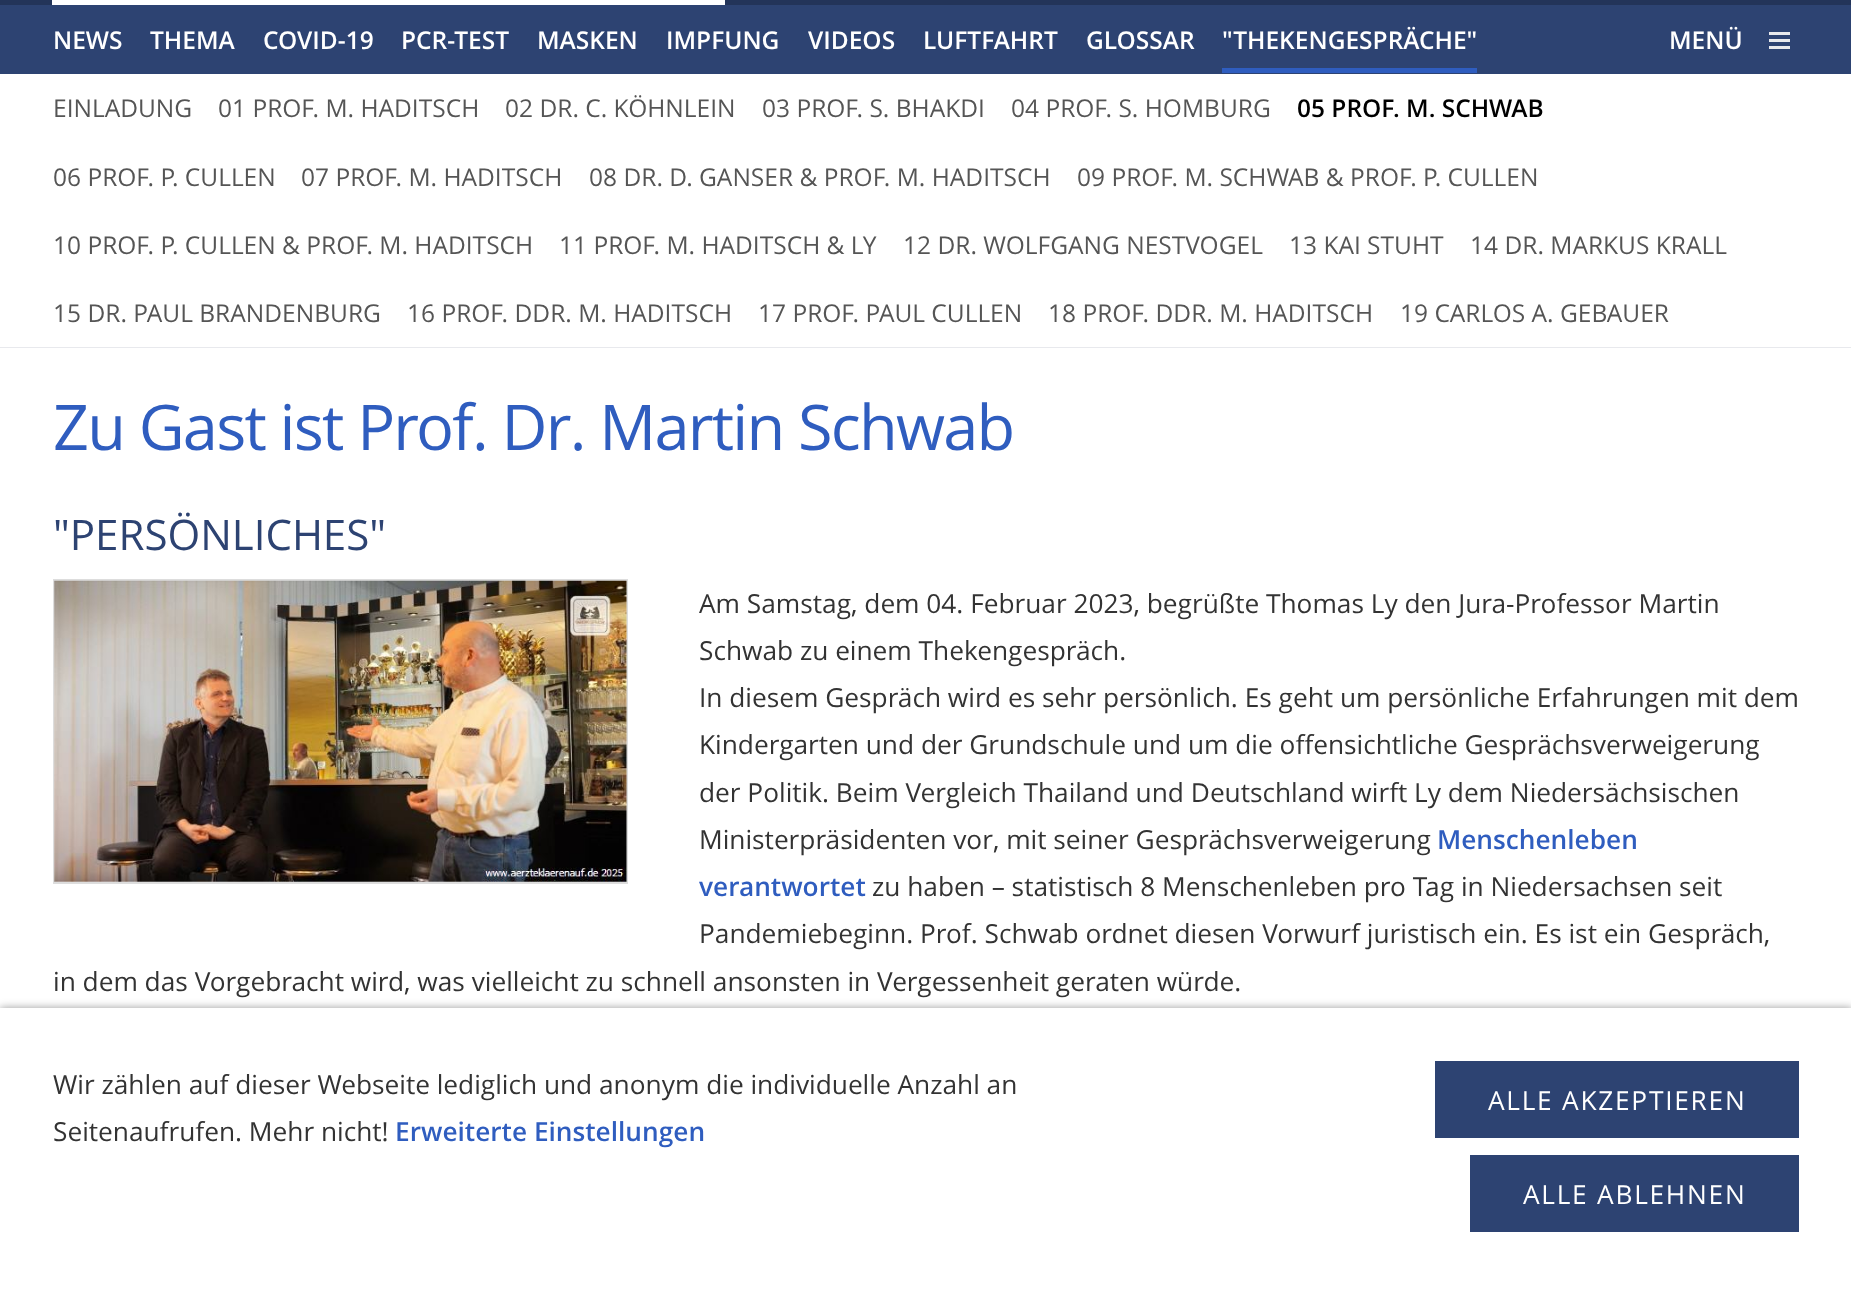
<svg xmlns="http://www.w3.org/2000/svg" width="1851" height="1301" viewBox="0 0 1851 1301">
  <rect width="100%" height="100%" fill="#233459"/>
  <path d="M52 0h673v5H52z" fill="#fff"/>
  <path d="M0 5h1851v69H0z" fill="#2d4372"/>
  <path d="M1222 68h255v5H1222z" fill="#2f5dbf"/>
  <path d="M1769 46h21v3H1769z" fill="#e8e9ed"/>
  <path d="M1769 39h21v3H1769z" fill="#e8e9ed"/>
  <path d="M1769 32h21v3H1769z" fill="#e8e9ed"/>
  <path d="M0 74h1851v273H0z" fill="#fff"/>
  <path d="M0 347h1851v1H0z" fill="#e8e9ed"/>
  <path d="M0 348h1851v660H0z" fill="#fff"/>
  <path d="M54 580h573v303H54z" fill="none" stroke="#ddd" stroke-width="2"/>
  <image x="54" y="580" width="573" height="302" href="img/1.png"/>
  <path d="M0 1008h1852v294H0z" fill="#00000066" filter="blur(4.5px)"/>
  <path d="M0 1008h1851v293H0z" fill="#fff"/>
  <path d="M1435 1061h364v77H1435z" fill="#2d4372"/>
  <path d="M1470 1155h329v77H1470z" fill="#2d4372"/>
  <g font-family="Open Sans" font-size="24.5" font-weight="600" fill="#fff">
    <text x="53" y="49">NEWS</text>
    <text x="150" y="49">THEMA</text>
    <text x="263" y="49">COVID-19</text>
    <text x="401" y="49">PCR-TEST</text>
    <text x="537" y="49">MASKEN</text>
    <text x="666" y="49">IMPFUNG</text>
    <text x="808" y="49">VIDEOS</text>
    <text x="923" y="49">LUFTFAHRT</text>
    <text x="1086" y="49">GLOSSAR</text>
    <text x="1222" y="49">"THEKENGESPRÄCHE"</text>
    <text x="1669" y="49">MENÜ</text>
  </g>
  <g font-family="Open Sans" font-size="24.5" fill="#555">
    <text x="53" y="117">EINLADUNG</text>
    <text x="218" y="117">01 PROF. M. HADITSCH</text>
    <text x="505" y="117">02 DR. C. KÖHNLEIN</text>
    <text x="762" y="117">03 PROF. S. BHAKDI</text>
    <text x="1011" y="117">04 PROF. S. HOMBURG</text>
  </g>
  <text x="1297" y="117" font-family="Open Sans" font-size="24.5" font-weight="600" fill="#000">05 PROF. M. SCHWAB</text>
  <g font-family="Open Sans" font-size="24.5" fill="#555">
    <text x="53" y="186">06 PROF. P. CULLEN</text>
    <text x="301" y="186">07 PROF. M. HADITSCH</text>
    <text x="589" y="186">08 DR. D. GANSER &amp; PROF. M. HADITSCH</text>
    <text x="1077" y="186">09 PROF. M. SCHWAB &amp; PROF. P. CULLEN</text>
    <text x="53" y="254">10 PROF. P. CULLEN &amp; PROF. M. HADITSCH</text>
    <text x="559" y="254">11 PROF. M. HADITSCH &amp; LY</text>
    <text x="903" y="254">12 DR. WOLFGANG NESTVOGEL</text>
    <text x="1289" y="254">13 KAI STUHT</text>
    <text x="1470" y="254">14 DR. MARKUS KRALL</text>
    <text x="53" y="322">15 DR. PAUL BRANDENBURG</text>
    <text x="407" y="322">16 PROF. DDR. M. HADITSCH</text>
    <text x="758" y="322">17 PROF. PAUL CULLEN</text>
    <text x="1048" y="322">18 PROF. DDR. M. HADITSCH</text>
    <text x="1400" y="322">19 CARLOS A. GEBAUER</text>
  </g>
  <text x="53" y="450" font-family="Open Sans" font-size="63" letter-spacing="-1.75" fill="#2f5dbf">Zu Gast ist Prof. Dr. Martin Schwab</text>
  <text x="53" y="550" font-family="Open Sans" font-size="42" fill="#2d4372">"PERSÖNLICHES"</text>
  <g font-family="Open Sans" font-size="26.25" fill="#333">
    <text x="699" y="613">Am Samstag, dem 04. Februar 2023, begrüßte Thomas Ly den Jura-Professor Martin</text>
    <text x="699" y="660">Schwab zu einem Thekengespräch.</text>
    <text x="699" y="707">In diesem Gespräch wird es sehr persönlich. Es geht um persönliche Erfahrungen mit dem</text>
    <text x="699" y="754">Kindergarten und der Grundschule und um die offensichtliche Gesprächsverweigerung</text>
    <text x="699" y="802">der Politik. Beim Vergleich Thailand und Deutschland wirft Ly dem Niedersächsischen</text>
    <text x="699" y="849">Ministerpräsidenten vor, mit seiner Gesprächsverweigerung</text>
  </g>
  <g font-family="Open Sans" font-size="26.25" font-weight="600" fill="#2f5dbf">
    <text x="1437" y="849">Menschenleben</text>
    <text x="699" y="896">verantwortet</text>
  </g>
  <g font-family="Open Sans" font-size="26.25" fill="#333">
    <text x="872" y="896">zu haben – statistisch 8 Menschenleben pro Tag in Niedersachsen seit</text>
    <text x="699" y="943">Pandemiebeginn. Prof. Schwab ordnet diesen Vorwurf juristisch ein. Es ist ein Gespräch,</text>
    <text x="53" y="991">in dem das Vorgebracht wird, was vielleicht zu schnell ansonsten in Vergessenheit geraten würde.</text>
    <text x="53" y="1094">Wir zählen auf dieser Webseite lediglich und anonym die individuelle Anzahl an</text>
    <text x="53" y="1141">Seitenaufrufen. Mehr nicht!</text>
  </g>
  <text x="395" y="1141" font-family="Open Sans" font-size="26.25" font-weight="600" fill="#2f5dbf">Erweiterte Einstellungen</text>
  <g font-family="Open Sans" font-size="26.25" letter-spacing="1.75" fill="#fff">
    <text x="1488" y="1110">ALLE AKZEPTIEREN</text>
    <text x="1523" y="1204">ALLE ABLEHNEN</text>
  </g>
</svg>
